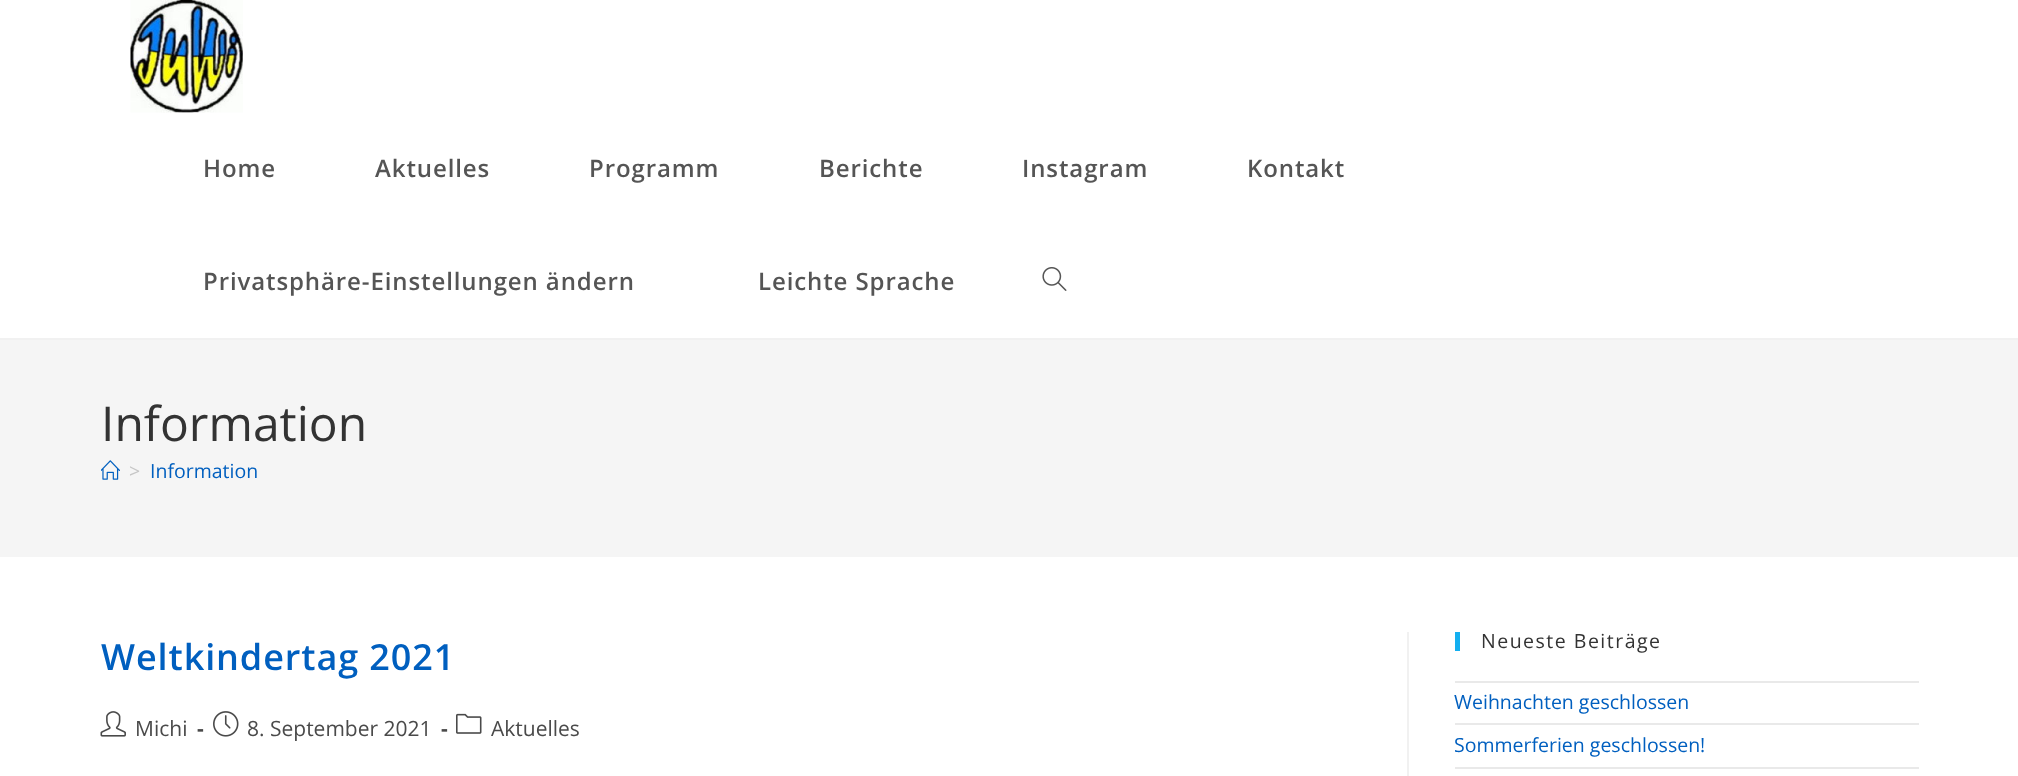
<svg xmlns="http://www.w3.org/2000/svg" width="2018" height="776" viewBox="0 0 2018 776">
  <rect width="100%" height="100%" fill="#fff"/>
  <path d="M0 338h2018v2H0z" fill="#f1f1f1"/>
  <image x="130" y="0" width="113" height="113" href="img/1.png"/>
  <image x="1042" y="267" width="25" height="24" href="img/2.png"/>
  <path d="M0 340h2018v217H0z" fill="#f5f5f5"/>
  <image x="101" y="460" width="19" height="20" href="img/3.png"/>
  <path d="M1407 632h2v144H1407z" fill="#f1f1f1"/>
  <image x="100" y="711" width="26" height="26" href="img/4.png"/>
  <image x="213" y="711" width="26" height="26" href="img/5.png"/>
  <image x="456" y="713" width="26" height="21" href="img/6.png"/>
  <path d="M1455 632h5v19H1455z" fill="#13aff0"/>
  <path d="M1455 681h464v2H1455z" fill="#e9e9e9"/>
  <path d="M1455 723h464v2H1455z" fill="#e9e9e9"/>
  <path d="M1455 767h464v2H1455z" fill="#e9e9e9"/>
  <g font-family="Open Sans" font-size="24" font-weight="600" letter-spacing="0.9" fill="#555">
    <text x="203" y="177">Home</text>
    <text x="375" y="177">Aktuelles</text>
    <text x="589" y="177">Programm</text>
    <text x="819" y="177">Berichte</text>
    <text x="1022" y="177">Instagram</text>
    <text x="1247" y="177">Kontakt</text>
    <text x="203" y="290">Privatsphäre-Einstellungen ändern</text>
    <text x="758" y="290">Leichte Sprache</text>
  </g>
  <text x="101" y="441" font-family="Open Sans" font-size="48" fill="#333">Information</text>
  <text x="129" y="478" font-family="Open Sans" font-size="19.5" fill="#c6c6c6">&gt;</text>
  <text x="150" y="478" font-family="Open Sans" font-size="19.5" fill="#005fbf">Information</text>
  <text x="101" y="670" font-family="Open Sans" font-size="36" font-weight="600" letter-spacing="0.9" fill="#005fbf">Weltkindertag 2021</text>
  <text x="135" y="736" font-family="Open Sans" font-size="21" fill="#4a4a4a">Michi</text>
  <text x="197" y="736" font-family="Open Sans" font-size="21" font-weight="bold" fill="#4a4a4a">-</text>
  <text x="247" y="736" font-family="Open Sans" font-size="21" fill="#4a4a4a">8. September 2021</text>
  <text x="441" y="736" font-family="Open Sans" font-size="21" font-weight="bold" fill="#4a4a4a">-</text>
  <text x="491" y="736" font-family="Open Sans" font-size="21" fill="#4a4a4a">Aktuelles</text>
  <text x="1481" y="648" font-family="Open Sans" font-size="19.5" letter-spacing="1.5" fill="#333">Neueste Beiträge</text>
  <g font-family="Open Sans" font-size="19.5" fill="#005fbf">
    <text x="1454" y="709">Weihnachten geschlossen</text>
    <text x="1454" y="752">Sommerferien geschlossen!</text>
  </g>
</svg>
